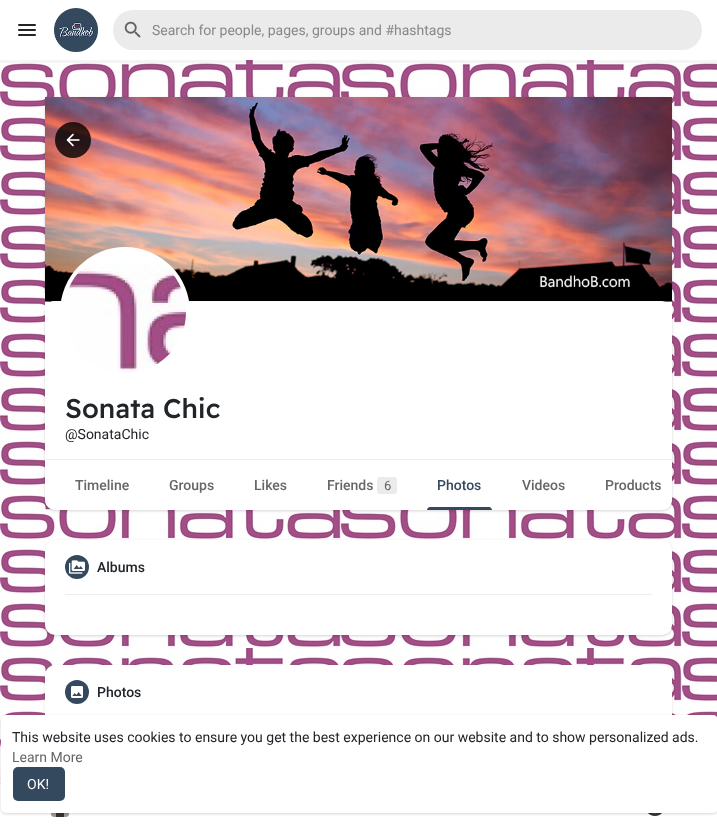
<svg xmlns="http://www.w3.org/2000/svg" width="717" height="828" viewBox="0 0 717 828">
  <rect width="100%" height="100%" fill="#fff"/>
  <image x="0" y="60" width="717" height="723" href="img/1.png"/>
  <image x="18" y="24" width="18" height="12" href="img/2.png"/>
  <image x="54" y="8" width="44" height="44" href="img/3.png"/>
  <rect x="113" y="10" width="589" height="40" rx="20" fill="#ebebeb"/>
  <image x="124" y="21" width="17" height="17" href="img/4.png"/>
  <path d="M0 60h717v3H0z" fill="#0000000a"/>
  <rect x="45" y="666" width="627" height="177" rx="10" fill="#0000001a" filter="blur(1.5px)"/>
  <rect x="45" y="665" width="627" height="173" rx="10" fill="#fff"/>
  <path d="M43 784h631v44H43z" fill="#fff"/>
  <image x="648" y="813" width="14" height="3" href="img/5.png"/>
  <rect x="45" y="98" width="627" height="205" rx="10" fill="#0000000f" filter="blur(1px)"/>
  <rect x="45" y="98" width="627" height="205" rx="10" fill="#0000001a" filter="blur(1.5px)"/>
  <rect x="45" y="97" width="627" height="205" rx="10" fill="#fff"/>
  <image x="45" y="97" width="627" height="204" href="img/6.png"/>
  <circle cx="73" cy="140" r="18" fill="#000000cc"/>
  <image x="66" y="133" width="14" height="14" href="img/7.png"/>
  <rect x="45" y="303" width="627" height="208" rx="10" fill="#0000000f" filter="blur(1px)"/>
  <rect x="45" y="303" width="627" height="208" rx="10" fill="#0000001a" filter="blur(1.5px)"/>
  <path d="M45 302H672V500C672 505.5 667.5 510 662 510H55C49.5 510 45 505.5 45 500Z" fill="#fff"/>
  <circle cx="125" cy="312" r="65" fill="#fff"/>
  <image x="69" y="264" width="117" height="109" href="img/8.png"/>
  <path d="M45 459h627v1H45z" fill="#eee"/>
  <rect x="377" y="477" width="20" height="17" rx="3" fill="#ebebeb"/>
  <path d="M430 507H489C490.5 507 492 508.5 492 510H427C427 508.5 428.5 507 430 507Z" fill="#34495e"/>
  <rect x="45" y="541" width="627" height="95" rx="10" fill="#0000000f" filter="blur(1px)"/>
  <rect x="45" y="541" width="627" height="95" rx="10" fill="#0000001a" filter="blur(1.5px)"/>
  <rect x="45" y="540" width="627" height="95" rx="10" fill="#fff"/>
  <path d="M65 594h587v1H65z" fill="#eee"/>
  <circle cx="77" cy="567" r="12" fill="#34495e"/>
  <image x="69" y="560" width="16" height="14" href="img/9.png"/>
  <circle cx="77" cy="692" r="12" fill="#34495e"/>
  <image x="71" y="686" width="12" height="12" href="img/10.png"/>
  <path d="M0 783h1v1H0z" fill="#e6e6e6"/>
  <image x="51" y="813" width="18" height="4" href="img/11.png"/>
  <rect x="1" y="716" width="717" height="98" rx="5" fill="#0000000f" filter="blur(1px)"/>
  <rect x="1" y="716" width="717" height="98" rx="5" fill="#0000001a" filter="blur(1.5px)"/>
  <rect x="1" y="715" width="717" height="98" rx="5" fill="#fff"/>
  <rect x="13" y="767" width="52" height="34" rx="5" fill="#34495e"/>
  <text x="152" y="35" font-family="Roboto" font-size="14" fill="#888">Search for people, pages, groups and #hashtags</text>
  <text x="65" y="418" font-family="Readex Pro" font-size="27" font-weight="500" fill="#212529">Sonata Chic</text>
  <text x="65" y="439" font-family="Roboto" font-size="14" fill="#212529">@SonataChic</text>
  <g font-family="Roboto" font-size="14" font-weight="500" fill="#666">
    <text x="75" y="490">Timeline</text>
    <text x="169" y="490">Groups</text>
    <text x="254" y="490">Likes</text>
    <text x="327" y="490">Friends</text>
  </g>
  <text x="384" y="490" font-family="Roboto" font-size="13" fill="#666">6</text>
  <text x="437" y="490" font-family="Roboto" font-size="14" font-weight="500" fill="#34495e">Photos</text>
  <g font-family="Roboto" font-size="14" font-weight="500" fill="#666">
    <text x="522" y="490">Videos</text>
    <text x="605" y="490">Products</text>
  </g>
  <g font-family="Roboto" font-size="14" font-weight="500" fill="#212529">
    <text x="97" y="572">Albums</text>
    <text x="97" y="697">Photos</text>
  </g>
  <text x="12" y="742" font-family="Roboto" font-size="14" fill="#212529">This website uses cookies to ensure you get the best experience on our website and to show personalized ads.</text>
  <text x="12" y="762" font-family="Roboto" font-size="14" fill="#666">Learn More</text>
  <text x="27" y="789" font-family="Roboto" font-size="14" fill="#fff">OK!</text>
</svg>
